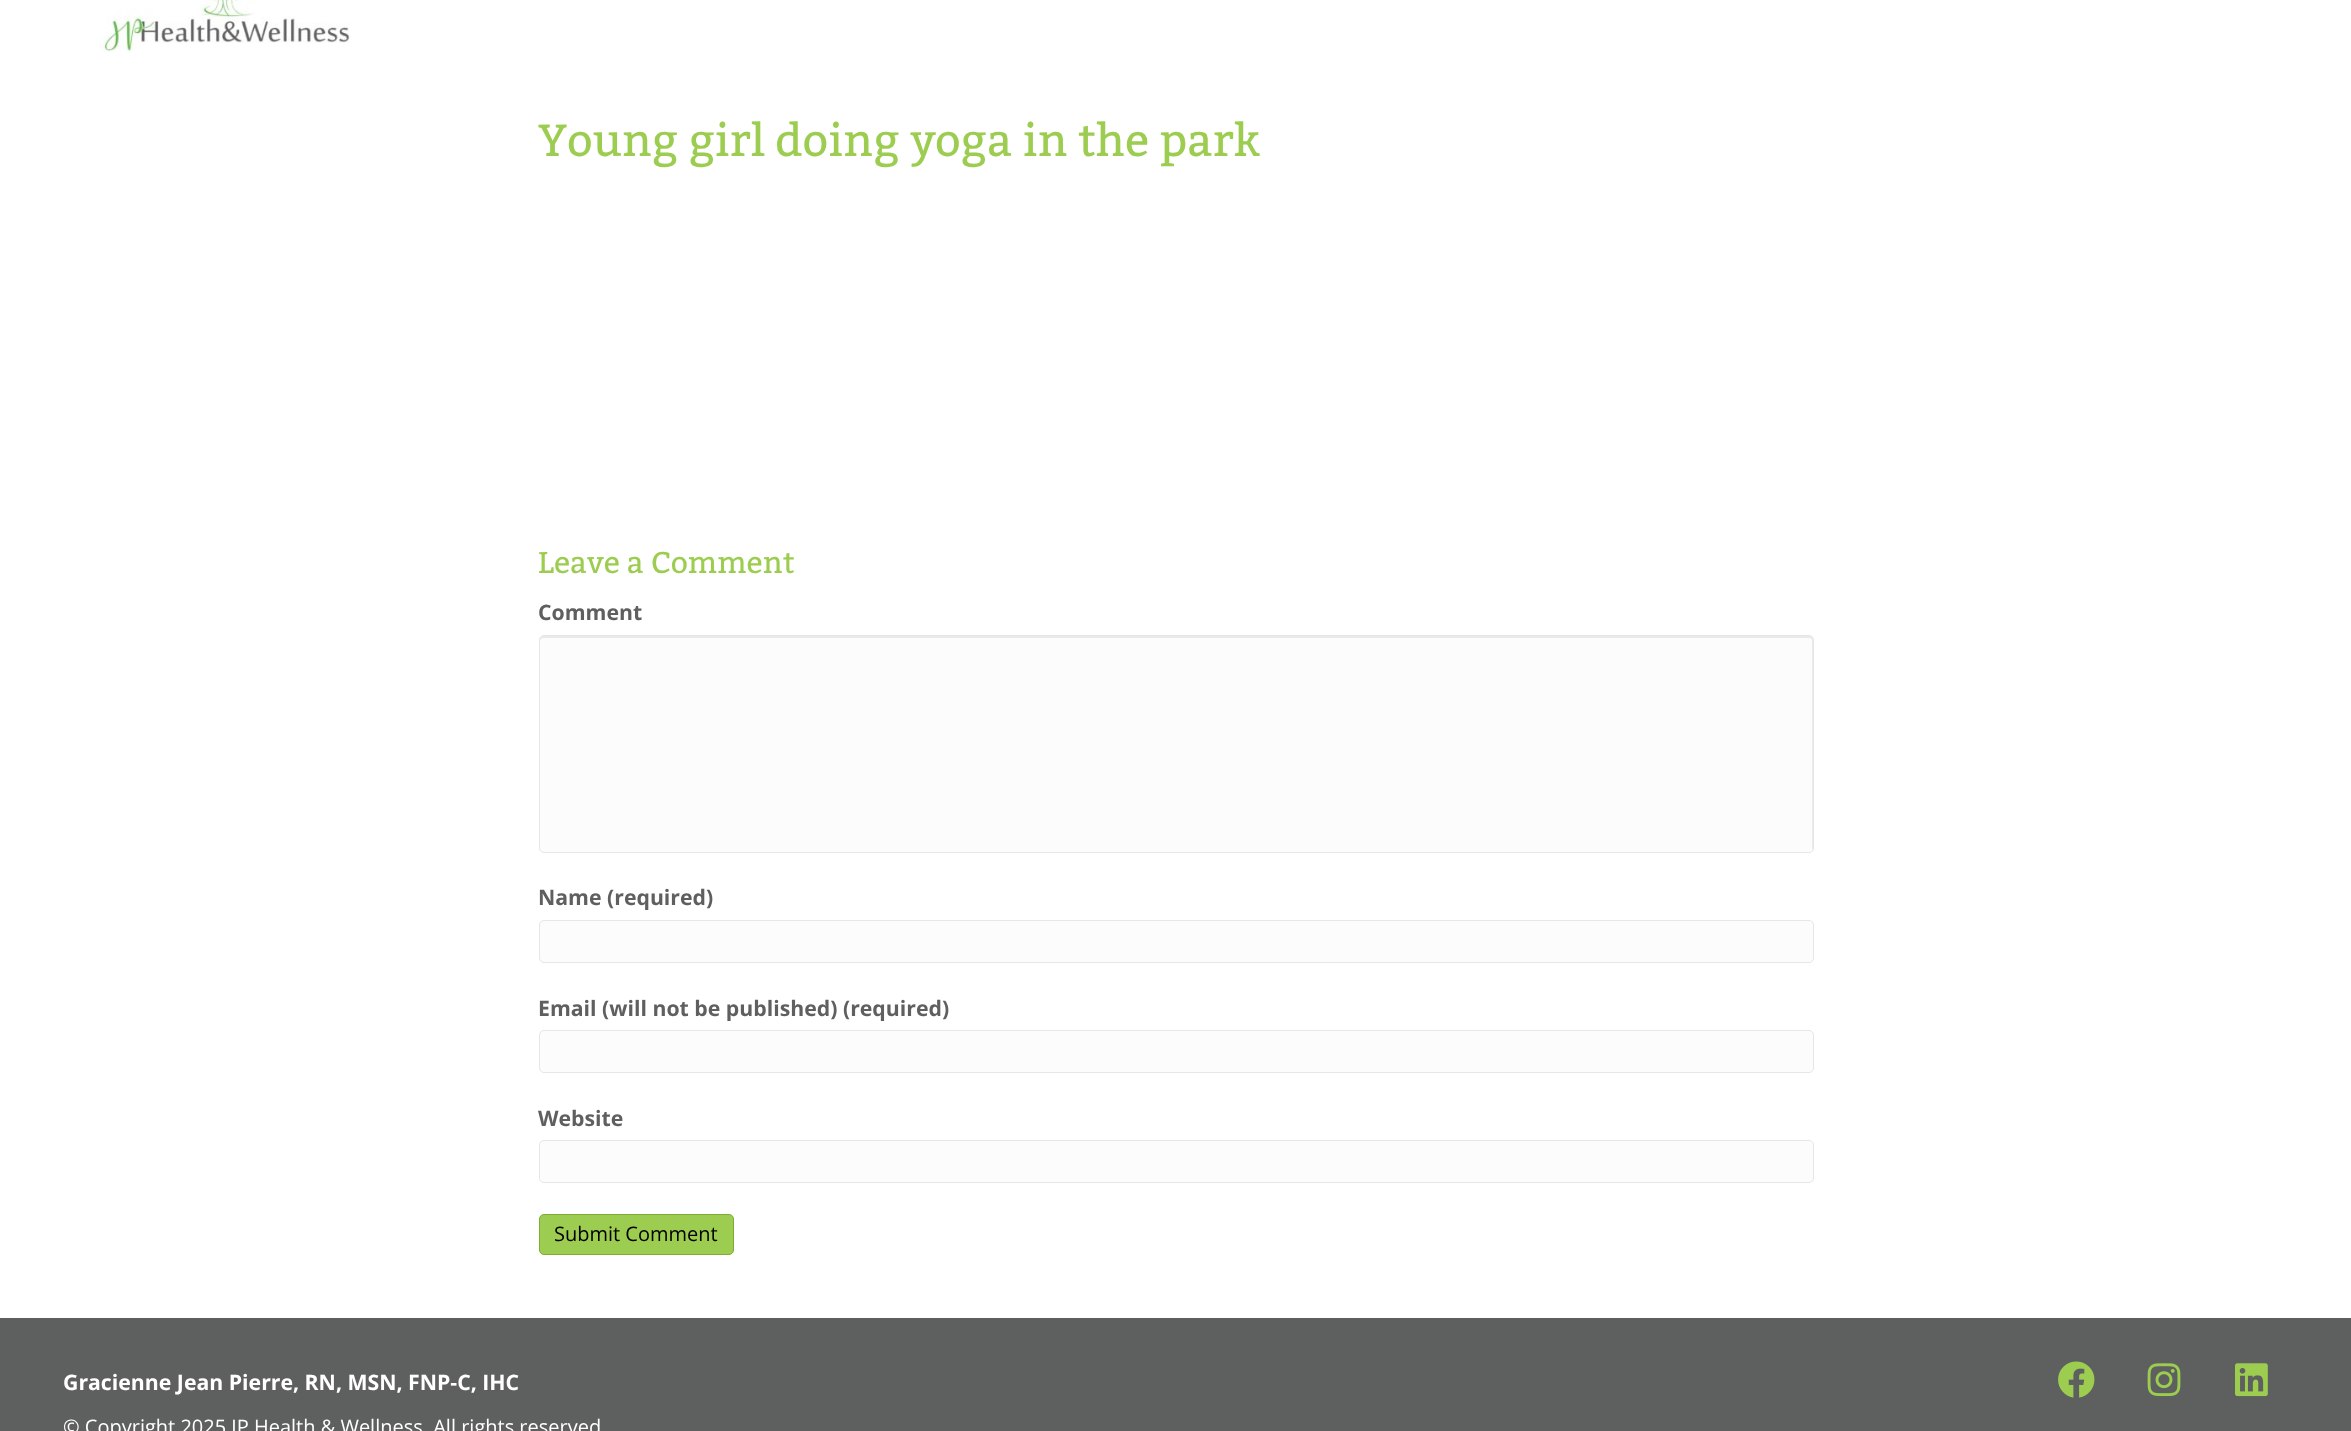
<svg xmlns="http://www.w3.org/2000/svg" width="2351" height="1431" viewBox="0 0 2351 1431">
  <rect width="100%" height="100%" fill="#fff"/>
  <image x="100" y="0" width="250" height="53" href="img/1.png"/>
  <rect x="539" y="635" width="1275" height="218" rx="5" fill="#fcfcfc"/>
  <path d="M544 638H1809C1811 638 1812 639 1812 641V850C1813 849 1813 848 1813 847V640C1813 638 1811 636 1809 636H544C542 636 540 638 540 640V641C540 639 542 638 544 638Z" fill="#e9e9e9"/>
  <rect x="539.5" y="635.5" width="1274" height="217" rx="4.5" fill="none" stroke="#e6e6e6"/>
  <rect x="539.5" y="920.5" width="1274" height="42" rx="4.5" fill="#fcfcfc" stroke="#e6e6e6"/>
  <rect x="539.5" y="1030.5" width="1274" height="42" rx="4.5" fill="#fcfcfc" stroke="#e6e6e6"/>
  <rect x="539.5" y="1140.5" width="1274" height="42" rx="4.5" fill="#fcfcfc" stroke="#e6e6e6"/>
  <rect x="539.5" y="1214.5" width="194" height="40" rx="4.5" fill="#9ccc50" stroke="#7dad32"/>
  <path d="M0 1318h2351v113H0z" fill="#5e5f5f"/>
  <image x="2058" y="1361" width="37" height="37" href="img/2.png"/>
  <image x="2147" y="1363" width="34" height="34" href="img/3.png"/>
  <image x="2235" y="1363" width="33" height="34" href="img/4.png"/>
  <text x="538" y="156" font-family="Kadwa" font-size="45" fill="#9ccc50">Young girl doing yoga in the park</text>
  <text x="538" y="573" font-family="Kadwa" font-size="30" fill="#9ccc50">Leave a Comment</text>
  <g font-family="Open Sans" font-size="21.25" font-weight="bold" fill="#5e5f5f">
    <text x="538" y="620">Comment</text>
    <text x="538" y="905">Name (required)</text>
    <text x="538" y="1016">Email (will not be published) (required)</text>
    <text x="538" y="1126">Website</text>
  </g>
  <text x="554" y="1241" font-family="Open Sans" font-size="20" fill="#000">Submit Comment</text>
  <text x="63" y="1390" font-family="Open Sans" font-size="21.25" font-weight="bold" fill="#fff">Gracienne Jean Pierre, RN, MSN, FNP-C, IHC</text>
  <text x="63" y="1434" font-family="Open Sans" font-size="20" fill="#fff">© Copyright 2025 JP Health &amp; Wellness. All rights reserved</text>
</svg>
